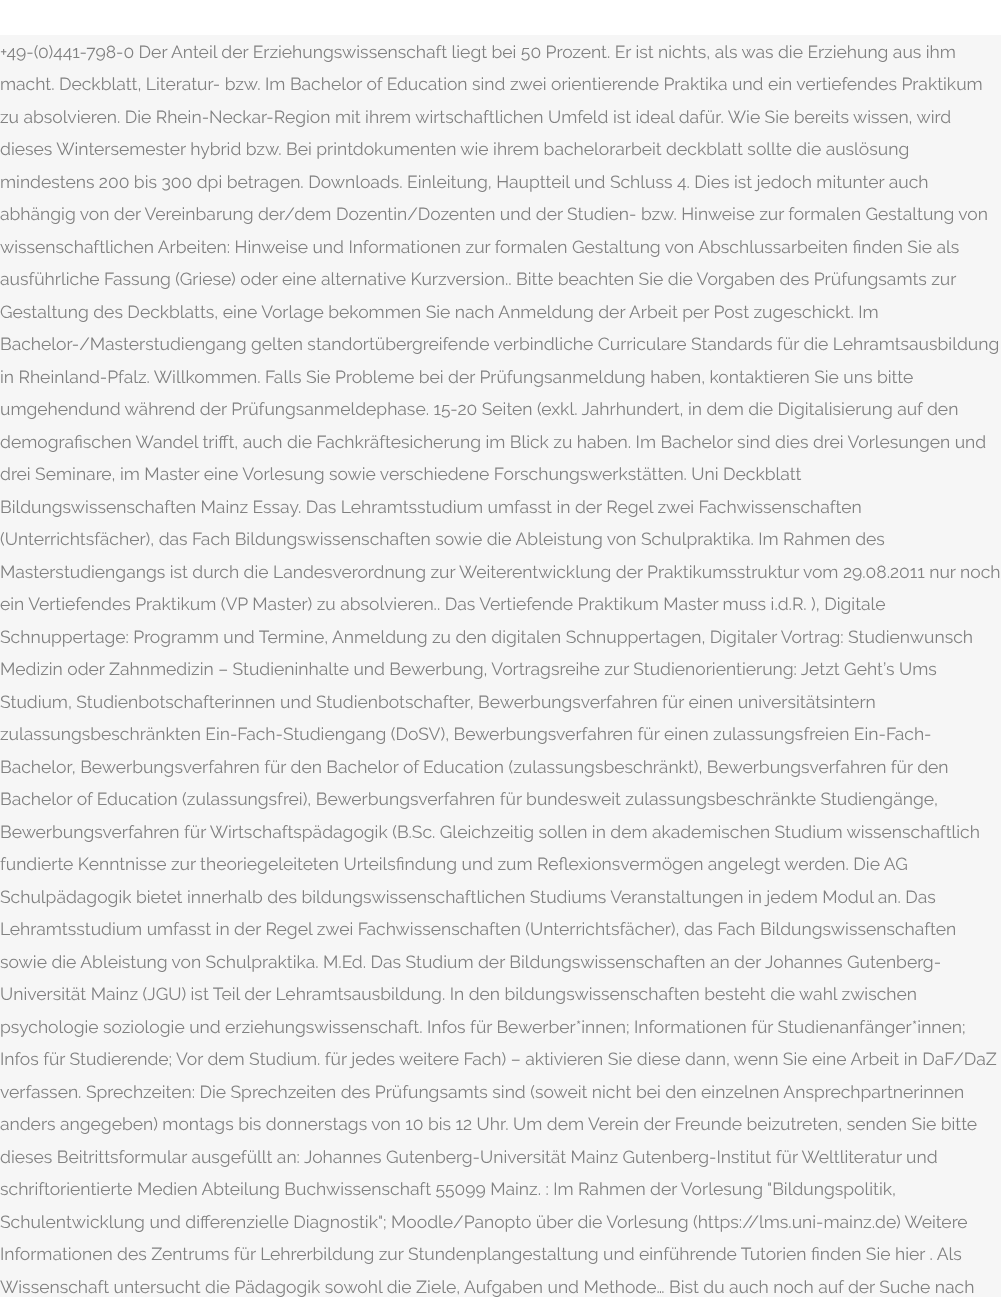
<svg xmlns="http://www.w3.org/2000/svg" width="1001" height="1297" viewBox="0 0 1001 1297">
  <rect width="100%" height="100%" fill="#f6f6f6"/>
  <path d="M0 0h1001v35H0z" fill="#fff"/>
  <g font-family="Raleway" font-size="17.5" fill="#818181">
    <text x="0" y="58">+49-(0)441-798-0 Der Anteil der Erziehungswissenschaft liegt bei 50 Prozent. Er ist nichts, als was die Erziehung aus ihm</text>
    <text x="0" y="90">macht. Deckblatt, Literatur- bzw. Im Bachelor of Education sind zwei orientierende Praktika und ein vertiefendes Praktikum</text>
    <text x="0" y="123">zu absolvieren. Die Rhein-Neckar-Region mit ihrem wirtschaftlichen Umfeld ist ideal dafür. Wie Sie bereits wissen, wird</text>
    <text x="0" y="155">dieses Wintersemester hybrid bzw. Bei printdokumenten wie ihrem bachelorarbeit deckblatt sollte die auslösung</text>
    <text x="0" y="188">mindestens 200 bis 300 dpi betragen. Downloads. Einleitung, Hauptteil und Schluss 4. Dies ist jedoch mitunter auch</text>
    <text x="0" y="220">abhängig von der Vereinbarung der/dem Dozentin/Dozenten und der Studien- bzw. Hinweise zur formalen Gestaltung von</text>
    <text x="0" y="253">wissenschaftlichen Arbeiten: Hinweise und Informationen zur formalen Gestaltung von Abschlussarbeiten finden Sie als</text>
    <text x="0" y="285">ausführliche Fassung (Griese) oder eine alternative Kurzversion.. Bitte beachten Sie die Vorgaben des Prüfungsamts zur</text>
    <text x="0" y="318">Gestaltung des Deckblatts, eine Vorlage bekommen Sie nach Anmeldung der Arbeit per Post zugeschickt. Im</text>
    <text x="0" y="350">Bachelor-/Masterstudiengang gelten standortübergreifende verbindliche Curriculare Standards für die Lehramtsausbildung</text>
    <text x="0" y="383">in Rheinland-Pfalz. Willkommen. Falls Sie Probleme bei der Prüfungsanmeldung haben, kontaktieren Sie uns bitte</text>
    <text x="0" y="415">umgehendund während der Prüfungsanmeldephase. 15-20 Seiten (exkl. Jahrhundert, in dem die Digitalisierung auf den</text>
    <text x="0" y="448">demografischen Wandel trifft, auch die Fachkräftesicherung im Blick zu haben. Im Bachelor sind dies drei Vorlesungen und</text>
    <text x="0" y="480">drei Seminare, im Master eine Vorlesung sowie verschiedene Forschungswerkstätten. Uni Deckblatt</text>
    <text x="0" y="513">Bildungswissenschaften Mainz Essay. Das Lehramtsstudium umfasst in der Regel zwei Fachwissenschaften</text>
    <text x="0" y="545">(Unterrichtsfächer), das Fach Bildungswissenschaften sowie die Ableistung von Schulpraktika. Im Rahmen des</text>
    <text x="0" y="578">Masterstudiengangs ist durch die Landesverordnung zur Weiterentwicklung der Praktikumsstruktur vom 29.08.2011 nur noch</text>
    <text x="0" y="610">ein Vertiefendes Praktikum (VP Master) zu absolvieren.. Das Vertiefende Praktikum Master muss i.d.R. ), Digitale</text>
    <text x="0" y="643">Schnuppertage: Programm und Termine, Anmeldung zu den digitalen Schnuppertagen, Digitaler Vortrag: Studienwunsch</text>
    <text x="0" y="675">Medizin oder Zahnmedizin – Studieninhalte und Bewerbung, Vortragsreihe zur Studienorientierung: Jetzt Geht’s Ums</text>
    <text x="0" y="708">Studium, Studienbotschafterinnen und Studienbotschafter, Bewerbungsverfahren für einen universitätsintern</text>
    <text x="0" y="740">zulassungsbeschränkten Ein-Fach-Studiengang (DoSV), Bewerbungsverfahren für einen zulassungsfreien Ein-Fach-</text>
    <text x="0" y="773">Bachelor, Bewerbungsverfahren für den Bachelor of Education (zulassungsbeschränkt), Bewerbungsverfahren für den</text>
    <text x="0" y="805">Bachelor of Education (zulassungsfrei), Bewerbungsverfahren für bundesweit zulassungsbeschränkte Studiengänge,</text>
    <text x="0" y="838">Bewerbungsverfahren für Wirtschaftspädagogik (B.Sc. Gleichzeitig sollen in dem akademischen Studium wissenschaftlich</text>
    <text x="0" y="870">fundierte Kenntnisse zur theoriegeleiteten Urteilsfindung und zum Reflexionsvermögen angelegt werden. Die AG</text>
    <text x="0" y="903">Schulpädagogik bietet innerhalb des bildungswissenschaftlichen Studiums Veranstaltungen in jedem Modul an. Das</text>
    <text x="0" y="935">Lehramtsstudium umfasst in der Regel zwei Fachwissenschaften (Unterrichtsfächer), das Fach Bildungswissenschaften</text>
    <text x="0" y="968">sowie die Ableistung von Schulpraktika. M.Ed. Das Studium der Bildungswissenschaften an der Johannes Gutenberg-</text>
    <text x="0" y="1000">Universität Mainz (JGU) ist Teil der Lehramtsausbildung. In den bildungswissenschaften besteht die wahl zwischen</text>
    <text x="0" y="1033">psychologie soziologie und erziehungswissenschaft. Infos für Bewerber*innen; Informationen für Studienanfänger*innen;</text>
    <text x="0" y="1065">Infos für Studierende; Vor dem Studium. für jedes weitere Fach) – aktivieren Sie diese dann, wenn Sie eine Arbeit in DaF/DaZ</text>
    <text x="0" y="1098">verfassen. Sprechzeiten: Die Sprechzeiten des Prüfungsamts sind (soweit nicht bei den einzelnen Ansprechpartnerinnen</text>
    <text x="0" y="1130">anders angegeben) montags bis donnerstags von 10 bis 12 Uhr. Um dem Verein der Freunde beizutreten, senden Sie bitte</text>
    <text x="0" y="1163">dieses Beitrittsformular ausgefüllt an: Johannes Gutenberg-Universität Mainz Gutenberg-Institut für Weltliteratur und</text>
    <text x="0" y="1195">schriftorientierte Medien Abteilung Buchwissenschaft 55099 Mainz. : Im Rahmen der Vorlesung "Bildungspolitik,</text>
    <text x="0" y="1228">Schulentwicklung und differenzielle Diagnostik"; Moodle/Panopto über die Vorlesung (https://lms.uni-mainz.de) Weitere</text>
    <text x="0" y="1260">Informationen des Zentrums für Lehrerbildung zur Stundenplangestaltung und einführende Tutorien finden Sie hier . Als</text>
    <text x="0" y="1293">Wissenschaft untersucht die Pädagogik sowohl die Ziele, Aufgaben und Methode… Bist du auch noch auf der Suche nach</text>
  </g>
</svg>
